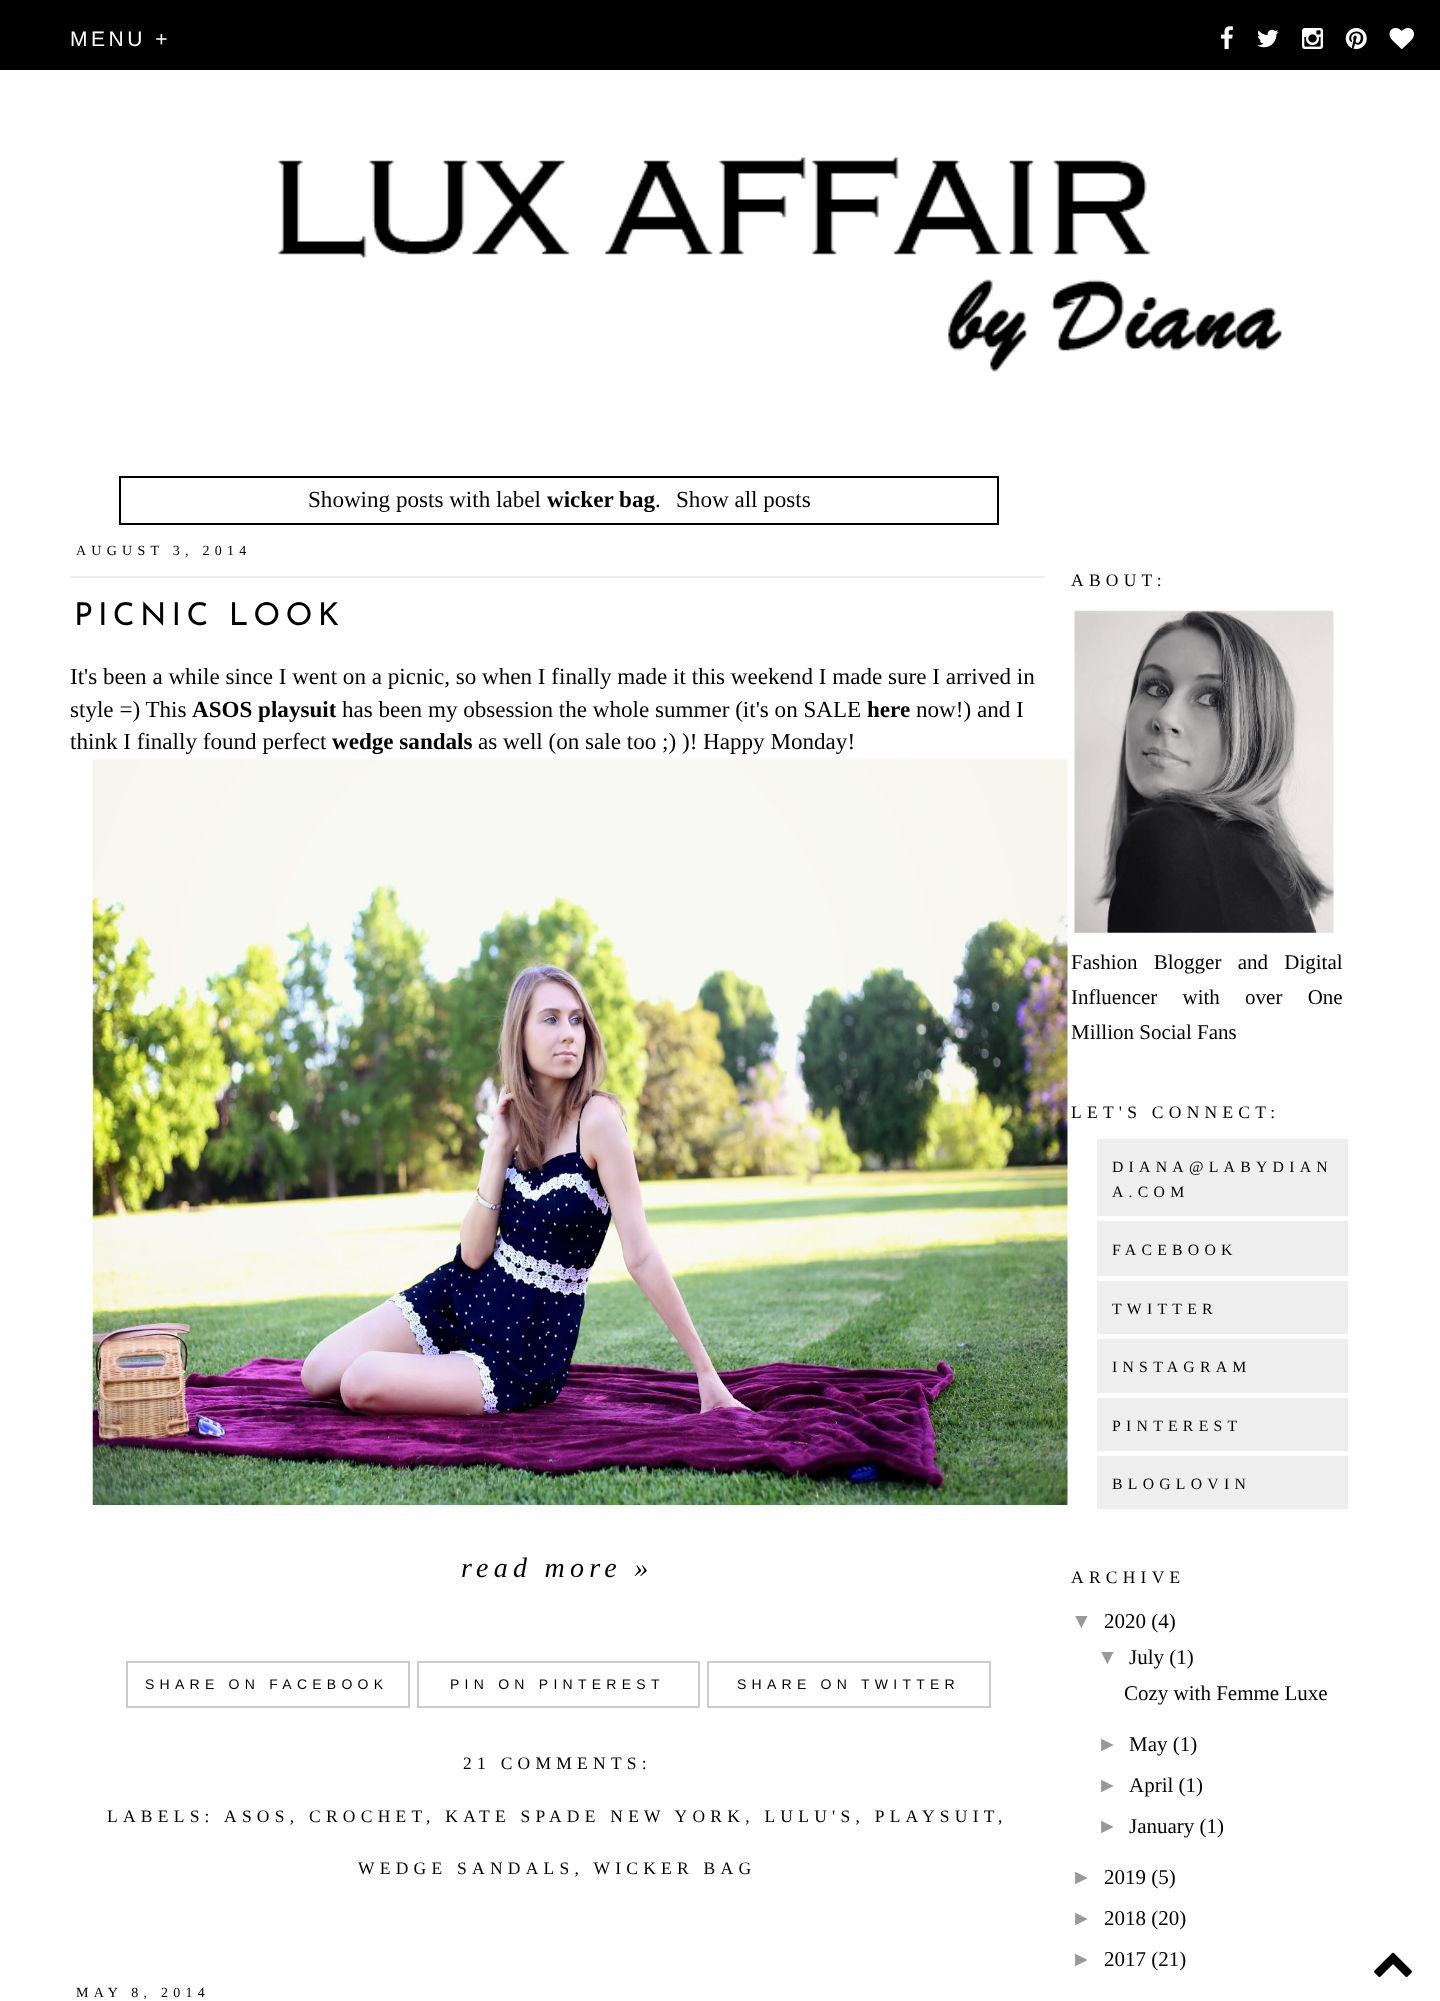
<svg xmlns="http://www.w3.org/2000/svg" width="1440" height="2001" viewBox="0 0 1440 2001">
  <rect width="100%" height="100%" fill="#fff"/>
  <path d="M0 0h1440v70H0z" fill="#000"/>
  <image x="277" y="157" width="1005" height="215" href="img/1.png"/>
  <path d="M120 477h878v47H120z" fill="none" stroke="#000" stroke-width="2"/>
  <path d="M70 576h975v2H70z" fill="#eee"/>
  <image x="92" y="759" width="976" height="746" href="img/2.png"/>
  <path d="M127 1662h282v45H127z" fill="none" stroke="#ccc" stroke-width="2"/>
  <path d="M418 1662h281v45H418z" fill="none" stroke="#ccc" stroke-width="2"/>
  <path d="M708 1662h282v45H708z" fill="none" stroke="#ccc" stroke-width="2"/>
  <image x="1074" y="610" width="260" height="323" href="img/3.png"/>
  <image x="1221" y="26" width="12" height="23" href="img/4.png"/>
  <image x="1257" y="29" width="22" height="19" href="img/5.png"/>
  <image x="1302" y="28" width="21" height="21" href="img/6.png"/>
  <image x="1345" y="28" width="22" height="21" href="img/7.png"/>
  <image x="1389" y="28" width="25" height="21" href="img/8.png"/>
  <path d="M1097 1139h251v137H1097z" fill="#eee"/>
  <path d="M1097 1216h251v5H1097z" fill="#fff"/>
  <path d="M1097 1281h251v53H1097z" fill="#eee"/>
  <path d="M1097 1339h251v54H1097z" fill="#eee"/>
  <path d="M1097 1398h251v53H1097z" fill="#eee"/>
  <path d="M1097 1456h251v53H1097z" fill="#eee"/>
  <image x="1374" y="1952" width="38" height="25" href="img/9.png"/>
  <text x="70" y="46" font-family="Liberation Sans" font-size="21" letter-spacing="3.5" fill="#fff">MENU +</text>
  <text x="308" y="507" font-family="Liberation Serif" font-size="23.1" fill="#000">Showing posts with label</text>
  <text x="547" y="507" font-family="Liberation Serif" font-size="23.1" font-weight="bold" fill="#000">wicker bag</text>
  <g font-family="Liberation Serif" font-size="23.1" fill="#000">
    <text x="655" y="507">.</text>
    <text x="676" y="507">Show all posts</text>
  </g>
  <text x="76" y="555" font-family="Liberation Serif" font-size="14" letter-spacing="5.25" fill="#000">AUGUST 3, 2014</text>
  <text x="74" y="625" font-family="Josefin Sans" font-size="31.5" font-weight="100" letter-spacing="5.25" fill="#000">PICNIC LOOK</text>
  <g font-family="Liberation Serif" font-size="23.1" fill="#000">
    <text x="70" y="684">It's been a while since I went on a picnic, so when I finally made it this weekend I made sure I arrived in</text>
    <text x="70" y="717">style =) This</text>
  </g>
  <text x="192" y="717" font-family="Liberation Serif" font-size="23.1" font-weight="bold" fill="#000">ASOS playsuit</text>
  <text x="342" y="717" font-family="Liberation Serif" font-size="23.1" fill="#000">has been my obsession the whole summer (it's on SALE</text>
  <text x="867" y="717" font-family="Liberation Serif" font-size="23.1" font-weight="bold" fill="#000">here</text>
  <g font-family="Liberation Serif" font-size="23.1" fill="#000">
    <text x="916" y="717">now!) and I</text>
    <text x="70" y="749">think I finally found perfect</text>
  </g>
  <text x="332" y="749" font-family="Liberation Serif" font-size="23.1" font-weight="bold" fill="#000">wedge sandals</text>
  <text x="478" y="749" font-family="Liberation Serif" font-size="23.1" fill="#000">as well (on sale too ;) )! Happy Monday!</text>
  <text x="461" y="1577" font-family="Liberation Serif" font-size="28" font-style="italic" letter-spacing="5.25" fill="#000">read more »</text>
  <g font-family="Liberation Sans" font-size="14" letter-spacing="5.25" fill="#000">
    <text x="145" y="1689">SHARE ON FACEBOOK</text>
    <text x="450" y="1689">PIN ON PINTEREST</text>
    <text x="737" y="1689">SHARE ON TWITTER</text>
  </g>
  <g font-family="Liberation Serif" font-size="17.5" letter-spacing="5.25" fill="#000">
    <text x="463" y="1769">21 COMMENTS:</text>
    <text x="107" y="1822">LABELS:</text>
    <text x="224" y="1822">ASOS, CROCHET</text>
    <text x="426" y="1822">, KATE SPADE NEW YORK, LULU'S, PLAYSUIT</text>
    <text x="998" y="1822">,</text>
    <text x="358" y="1874">WEDGE SANDALS, WICKER BAG</text>
  </g>
  <text x="76" y="1997" font-family="Liberation Serif" font-size="14" letter-spacing="5.25" fill="#000">MAY 8, 2014</text>
  <text x="1071" y="586" font-family="Liberation Serif" font-size="17.5" letter-spacing="5.25" fill="#000">ABOUT:</text>
  <g font-family="Liberation Serif" font-size="21" fill="#000">
    <text x="1071" y="969" word-spacing="11">Fashion Blogger and Digital</text>
    <text x="1071" y="1004" word-spacing="20">Influencer with over One</text>
    <text x="1071" y="1039">Million Social Fans</text>
  </g>
  <text x="1071" y="1118" font-family="Liberation Serif" font-size="17.5" letter-spacing="5.25" fill="#000">LET'S CONNECT:</text>
  <g font-family="Liberation Serif" font-size="15.75" letter-spacing="5.25" fill="#000">
    <text x="1112" y="1172">DIANA@LABYDIAN</text>
    <text x="1112" y="1197">A.COM</text>
    <text x="1112" y="1255">FACEBOOK</text>
    <text x="1112" y="1314">TWITTER</text>
    <text x="1112" y="1372">INSTAGRAM</text>
    <text x="1112" y="1431">PINTEREST</text>
    <text x="1112" y="1489">BLOGLOVIN</text>
  </g>
  <text x="1071" y="1583" font-family="Liberation Serif" font-size="17.5" letter-spacing="5.25" fill="#000">ARCHIVE</text>
  <text x="1071" y="1628" font-family="Liberation Sans" font-size="21" fill="#999">▼</text>
  <text x="1104" y="1628" font-family="Liberation Serif" font-size="21" fill="#000">2020 (4)</text>
  <text x="1097" y="1664" font-family="Liberation Sans" font-size="21" fill="#999">▼</text>
  <g font-family="Liberation Serif" font-size="21" fill="#000">
    <text x="1129" y="1664">July (1)</text>
    <text x="1124" y="1700">Cozy with Femme Luxe</text>
  </g>
  <text x="1097" y="1751" font-family="Liberation Sans" font-size="21" fill="#999">►</text>
  <text x="1129" y="1751" font-family="Liberation Serif" font-size="21" fill="#000">May (1)</text>
  <text x="1097" y="1792" font-family="Liberation Sans" font-size="21" fill="#999">►</text>
  <text x="1129" y="1792" font-family="Liberation Serif" font-size="21" fill="#000">April (1)</text>
  <text x="1097" y="1833" font-family="Liberation Sans" font-size="21" fill="#999">►</text>
  <text x="1129" y="1833" font-family="Liberation Serif" font-size="21" fill="#000">January (1)</text>
  <text x="1071" y="1884" font-family="Liberation Sans" font-size="21" fill="#999">►</text>
  <text x="1104" y="1884" font-family="Liberation Serif" font-size="21" fill="#000">2019 (5)</text>
  <text x="1071" y="1925" font-family="Liberation Sans" font-size="21" fill="#999">►</text>
  <text x="1104" y="1925" font-family="Liberation Serif" font-size="21" fill="#000">2018 (20)</text>
  <text x="1071" y="1966" font-family="Liberation Sans" font-size="21" fill="#999">►</text>
  <text x="1104" y="1966" font-family="Liberation Serif" font-size="21" fill="#000">2017 (21)</text>
</svg>
